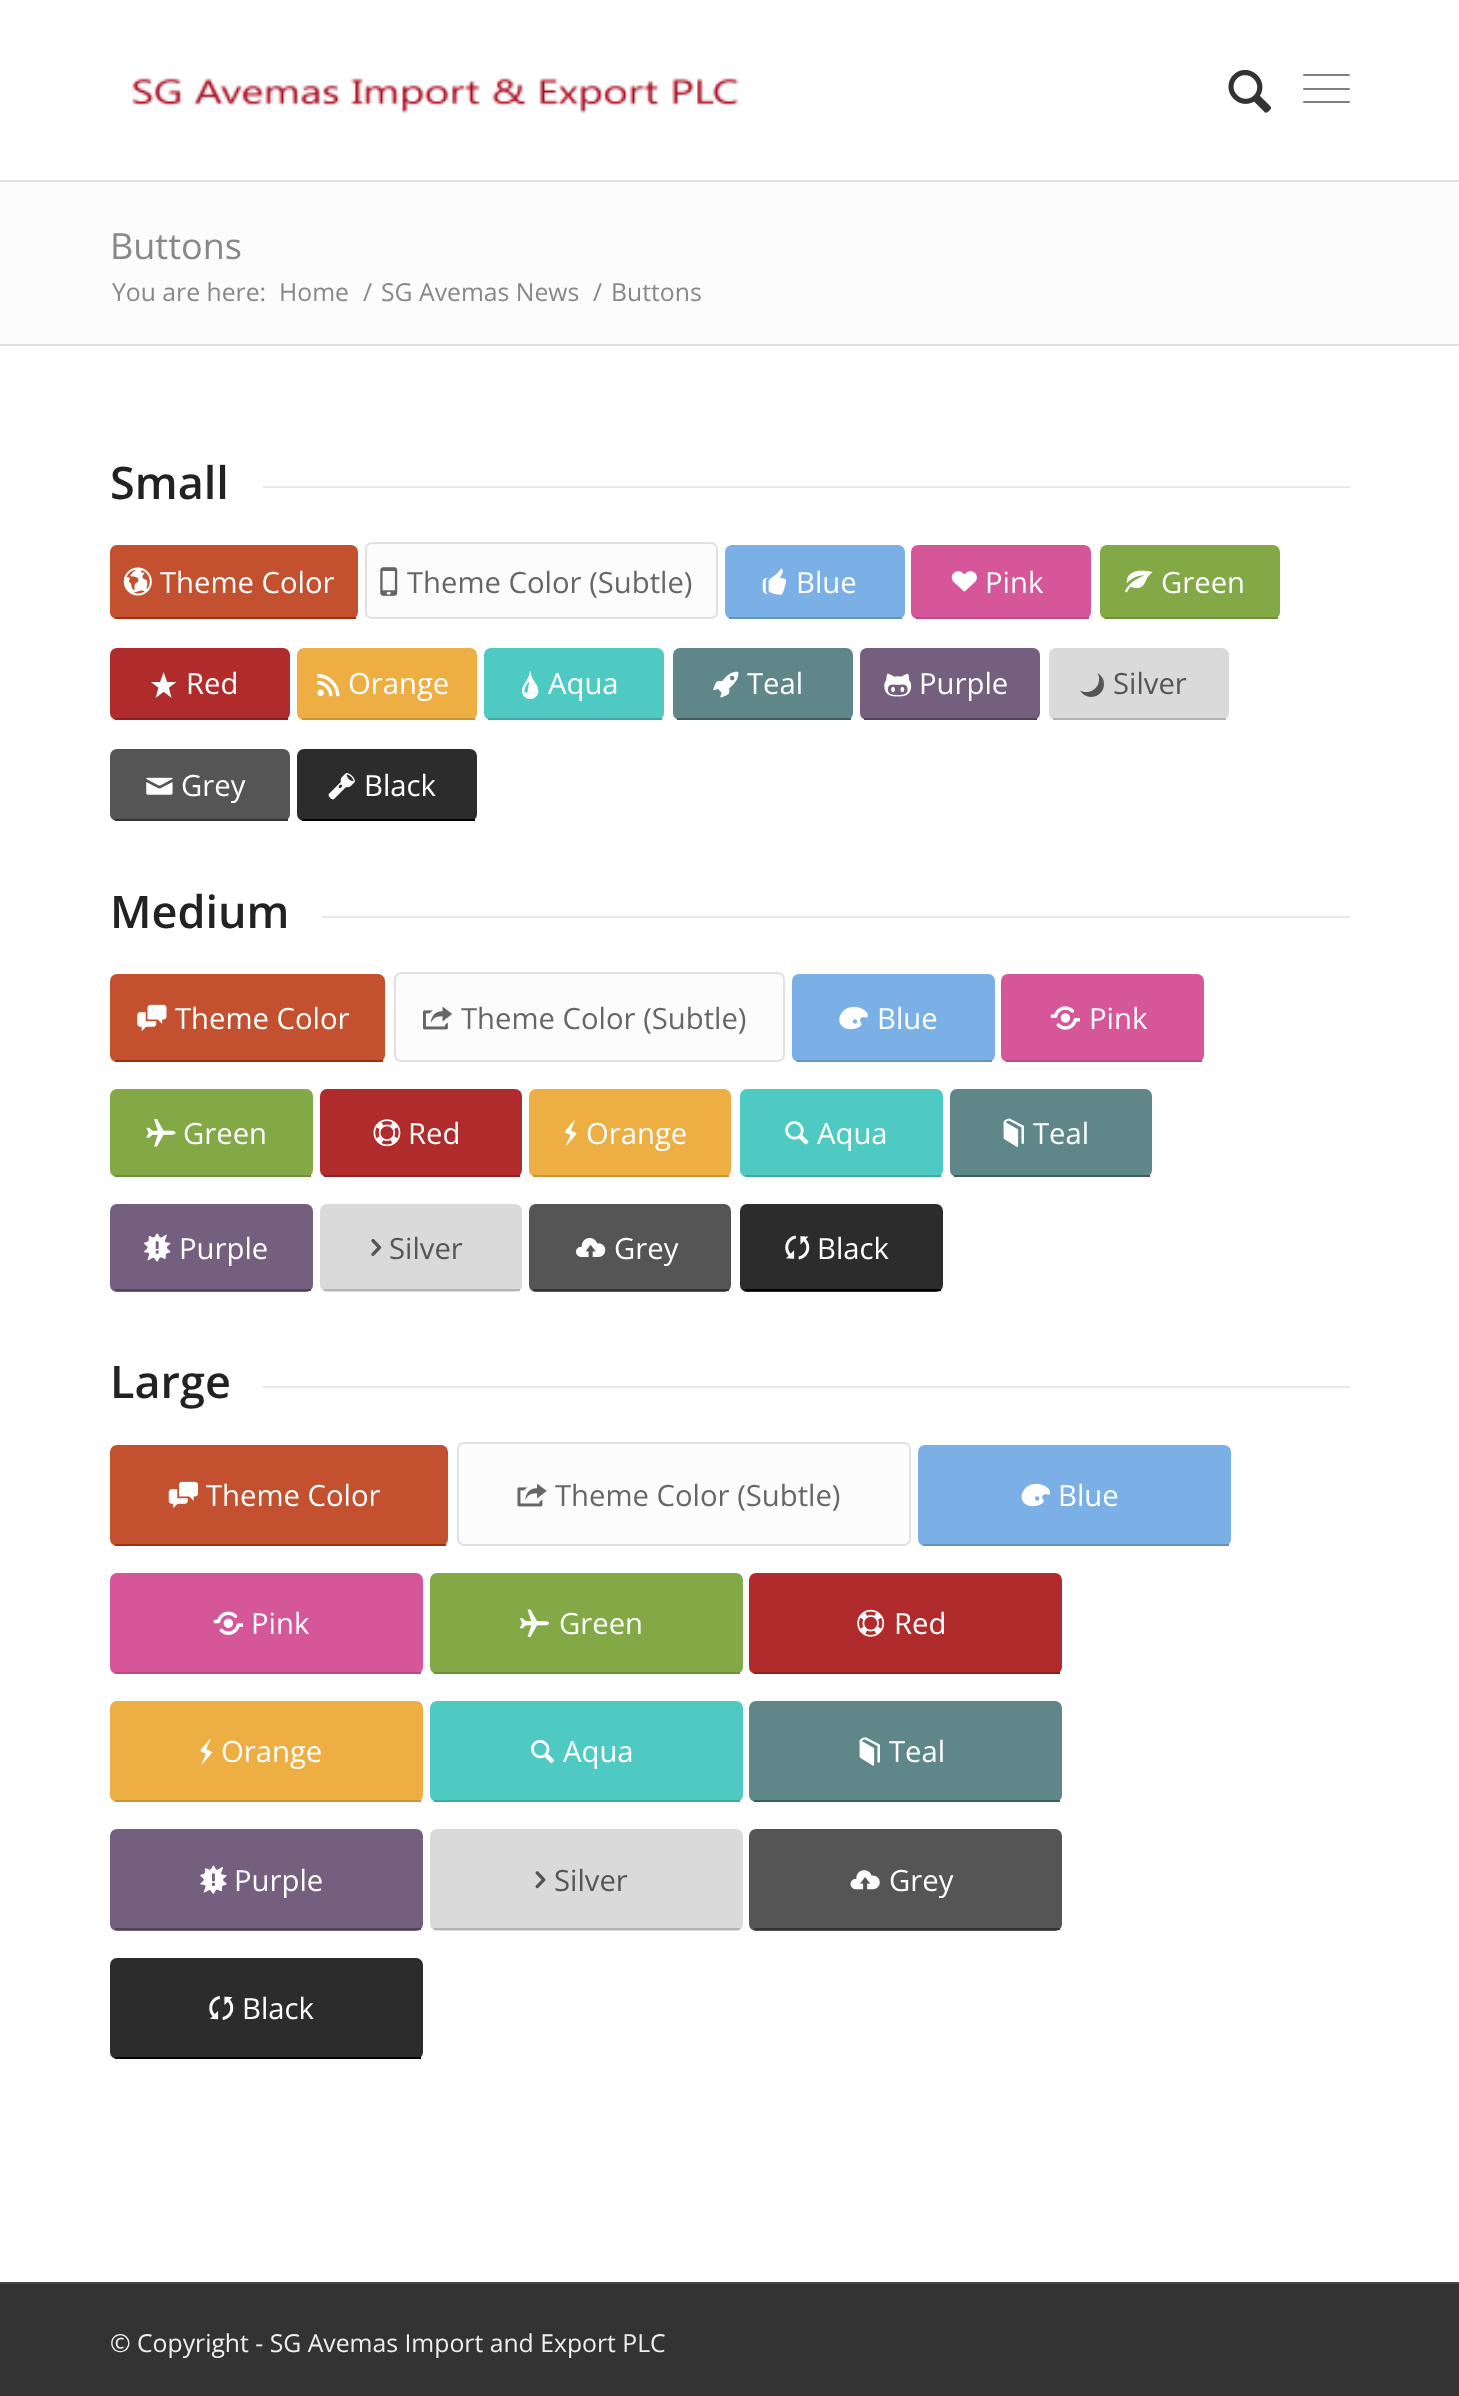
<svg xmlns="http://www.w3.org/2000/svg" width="1459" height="2396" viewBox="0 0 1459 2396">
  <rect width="100%" height="100%" fill="#fff"/>
  <path d="M0 180h1459v2H0z" fill="#e1e1e1"/>
  <image x="132" y="78" width="607" height="36" href="img/1.png"/>
  <image x="1228" y="70" width="44" height="43" href="img/2.png"/>
  <rect x="1303" y="88" width="47" height="2" rx="1" fill="#808080"/>
  <rect x="1303" y="74" width="47" height="2" rx="1" fill="#808080"/>
  <rect x="1303" y="101" width="47" height="2" rx="1" fill="#808080"/>
  <path d="M0 182h1459v162H0z" fill="#fcfcfc"/>
  <path d="M0 344h1459v2H0z" fill="#e1e1e1"/>
  <path d="M263 486h1087v2H263z" fill="#e8e8e8"/>
  <rect x="110" y="545" width="248" height="74" rx="7" fill="#c3512f"/>
  <path d="M115 617h241v2H115z" fill="#a1300d"/>
  <image x="123" y="567" width="29" height="29" href="img/3.png"/>
  <rect x="366" y="543" width="351" height="75" rx="6" fill="#fcfcfc" stroke="#e1e1e1" stroke-width="2"/>
  <image x="380" y="567" width="18" height="29" href="img/4.png"/>
  <rect x="725" y="545" width="180" height="74" rx="7" fill="#7bb0e7"/>
  <path d="M729 617h173v2H729z" fill="#6693c2"/>
  <image x="762" y="568" width="25" height="27" href="img/5.png"/>
  <rect x="911" y="545" width="180" height="74" rx="7" fill="#d65799"/>
  <path d="M916 617h173v2H916z" fill="#bb4b85"/>
  <image x="951" y="571" width="26" height="21" href="img/6.png"/>
  <rect x="1100" y="545" width="180" height="74" rx="7" fill="#83a846"/>
  <path d="M1105 617h173v2H1105z" fill="#6f8f3b"/>
  <image x="1125" y="570" width="28" height="23" href="img/7.png"/>
  <rect x="110" y="648" width="180" height="72" rx="7" fill="#b02b2c"/>
  <path d="M115 718h173v2H115z" fill="#8b2121"/>
  <image x="151" y="672" width="26" height="26" href="img/8.png"/>
  <rect x="297" y="648" width="180" height="72" rx="7" fill="#edae44"/>
  <path d="M302 718h173v2H302z" fill="#ca9336"/>
  <image x="317" y="673" width="23" height="24" href="img/9.png"/>
  <rect x="484" y="648" width="180" height="72" rx="7" fill="#4ecac2"/>
  <path d="M488 718h174v2H488z" fill="#3eaaa3"/>
  <image x="522" y="671" width="17" height="29" href="img/10.png"/>
  <rect x="673" y="648" width="180" height="72" rx="7" fill="#5f8789"/>
  <path d="M677 718h174v2H677z" fill="#3f5e5f"/>
  <image x="713" y="671" width="26" height="27" href="img/11.png"/>
  <rect x="860" y="648" width="180" height="72" rx="7" fill="#745f7e"/>
  <path d="M864 718h173v2H864z" fill="#514358"/>
  <image x="884" y="673" width="28" height="24" href="img/12.png"/>
  <rect x="1049" y="648" width="180" height="72" rx="7" fill="#dadada"/>
  <path d="M1053 718h173v2H1053z" fill="#b4b4b4"/>
  <image x="1080" y="673" width="24" height="24" href="img/13.png"/>
  <rect x="110" y="749" width="180" height="72" rx="7" fill="#555"/>
  <path d="M115 819h173v2H115z" fill="#333"/>
  <image x="146" y="777" width="27" height="18" href="img/14.png"/>
  <rect x="297" y="749" width="180" height="72" rx="7" fill="#2c2c2c"/>
  <path d="M302 819h173v2H302z" fill="#000"/>
  <image x="328" y="773" width="27" height="27" href="img/15.png"/>
  <path d="M322 916h1028v2H322z" fill="#e8e8e8"/>
  <rect x="110" y="974" width="275" height="88" rx="7" fill="#c3512f"/>
  <path d="M115 1060h268v2H115z" fill="#a1300d"/>
  <image x="137" y="1004" width="30" height="27" href="img/16.png"/>
  <rect x="395" y="973" width="389" height="88" rx="6" fill="#fcfcfc" stroke="#e1e1e1" stroke-width="2"/>
  <image x="423" y="1006" width="30" height="24" href="img/17.png"/>
  <rect x="792" y="974" width="203" height="88" rx="7" fill="#7bb0e7"/>
  <path d="M797 1060h195v2H797z" fill="#6693c2"/>
  <image x="839" y="1006" width="29" height="24" href="img/18.png"/>
  <rect x="1001" y="974" width="203" height="88" rx="7" fill="#d65799"/>
  <path d="M1006 1060h196v2H1006z" fill="#bb4b85"/>
  <image x="1050" y="1006" width="30" height="24" href="img/19.png"/>
  <rect x="110" y="1089" width="203" height="88" rx="7" fill="#83a846"/>
  <path d="M115 1175h196v2H115z" fill="#6f8f3b"/>
  <image x="146" y="1119" width="30" height="28" href="img/20.png"/>
  <rect x="320" y="1089" width="202" height="88" rx="7" fill="#b02b2c"/>
  <path d="M324 1175h196v2H324z" fill="#8b2121"/>
  <image x="373" y="1119" width="28" height="28" href="img/21.png"/>
  <rect x="529" y="1089" width="202" height="88" rx="7" fill="#edae44"/>
  <path d="M533 1175h196v2H533z" fill="#ca9336"/>
  <image x="564" y="1119" width="13" height="27" href="img/22.png"/>
  <rect x="740" y="1089" width="203" height="88" rx="7" fill="#4ecac2"/>
  <path d="M745 1175h196v2H745z" fill="#3eaaa3"/>
  <image x="785" y="1121" width="24" height="24" href="img/23.png"/>
  <rect x="950" y="1089" width="202" height="88" rx="7" fill="#5f8789"/>
  <path d="M954 1175h196v2H954z" fill="#3f5e5f"/>
  <image x="1003" y="1118" width="21" height="29" href="img/24.png"/>
  <rect x="110" y="1204" width="203" height="88" rx="7" fill="#745f7e"/>
  <path d="M115 1289h196v2H115z" fill="#514358"/>
  <image x="144" y="1233" width="27" height="29" href="img/25.png"/>
  <rect x="320" y="1204" width="202" height="88" rx="7" fill="#dadada"/>
  <path d="M324 1289h196v2H324z" fill="#b4b4b4"/>
  <image x="371" y="1239" width="11" height="17" href="img/26.png"/>
  <rect x="529" y="1204" width="202" height="88" rx="7" fill="#555"/>
  <path d="M533 1289h196v2H533z" fill="#333"/>
  <image x="576" y="1238" width="30" height="19" href="img/27.png"/>
  <rect x="740" y="1204" width="203" height="88" rx="7" fill="#2c2c2c"/>
  <path d="M745 1289h196v2H745z" fill="#000"/>
  <image x="785" y="1235" width="25" height="25" href="img/28.png"/>
  <path d="M263 1386h1087v2H263z" fill="#e8e8e8"/>
  <rect x="110" y="1445" width="338" height="101" rx="7" fill="#c3512f"/>
  <path d="M115 1544h331v2H115z" fill="#a1300d"/>
  <image x="168" y="1481" width="30" height="27" href="img/29.png"/>
  <rect x="458" y="1443" width="452" height="102" rx="6" fill="#fcfcfc" stroke="#e1e1e1" stroke-width="2"/>
  <image x="517" y="1483" width="30" height="24" href="img/30.png"/>
  <rect x="918" y="1445" width="313" height="101" rx="7" fill="#7bb0e7"/>
  <path d="M923 1544h306v2H923z" fill="#6693c2"/>
  <image x="1021" y="1483" width="30" height="24" href="img/31.png"/>
  <rect x="110" y="1573" width="313" height="101" rx="7" fill="#d65799"/>
  <path d="M115 1672h306v2H115z" fill="#bb4b85"/>
  <image x="213" y="1611" width="30" height="24" href="img/32.png"/>
  <rect x="430" y="1573" width="313" height="101" rx="7" fill="#83a846"/>
  <path d="M434 1672h306v2H434z" fill="#6f8f3b"/>
  <image x="519" y="1609" width="30" height="28" href="img/33.png"/>
  <rect x="749" y="1573" width="313" height="101" rx="7" fill="#b02b2c"/>
  <path d="M754 1672h306v2H754z" fill="#8b2121"/>
  <image x="857" y="1609" width="28" height="28" href="img/34.png"/>
  <rect x="110" y="1701" width="313" height="101" rx="7" fill="#edae44"/>
  <path d="M115 1800h306v2H115z" fill="#ca9336"/>
  <image x="200" y="1738" width="12" height="27" href="img/35.png"/>
  <rect x="430" y="1701" width="313" height="101" rx="7" fill="#4ecac2"/>
  <path d="M434 1800h306v2H434z" fill="#3eaaa3"/>
  <image x="531" y="1739" width="23" height="25" href="img/36.png"/>
  <rect x="749" y="1701" width="313" height="101" rx="7" fill="#5f8789"/>
  <path d="M754 1800h306v2H754z" fill="#3f5e5f"/>
  <image x="859" y="1737" width="21" height="29" href="img/37.png"/>
  <rect x="110" y="1829" width="313" height="102" rx="7" fill="#745f7e"/>
  <path d="M115 1928h306v2H115z" fill="#514358"/>
  <image x="200" y="1865" width="27" height="29" href="img/38.png"/>
  <rect x="430" y="1829" width="313" height="102" rx="7" fill="#dadada"/>
  <path d="M434 1928h306v2H434z" fill="#b4b4b4"/>
  <image x="535" y="1871" width="11" height="18" href="img/39.png"/>
  <rect x="749" y="1829" width="313" height="102" rx="7" fill="#555"/>
  <path d="M754 1928h306v2H754z" fill="#333"/>
  <image x="850" y="1870" width="30" height="20" href="img/40.png"/>
  <rect x="110" y="1958" width="313" height="101" rx="7" fill="#2c2c2c"/>
  <path d="M115 2057h306v2H115z" fill="#000"/>
  <image x="209" y="1996" width="25" height="24" href="img/41.png"/>
  <path d="M0 2284h1459v112H0z" fill="#333"/>
  <path d="M0 2282h1459v2H0z" fill="#444"/>
  <text x="110" y="259" font-family="Open Sans" font-size="36" fill="#888">Buttons</text>
  <g font-family="Open Sans" font-size="24.75" fill="#888">
    <text x="112" y="301">You are here:</text>
    <text x="279" y="301">Home</text>
    <text x="363" y="301">/</text>
    <text x="381" y="301">SG Avemas News</text>
    <text x="593" y="301">/</text>
    <text x="611" y="301">Buttons</text>
  </g>
  <text x="110" y="499" font-family="Open Sans" font-size="45" font-weight="600" fill="#222">Small</text>
  <text x="160" y="593" font-family="Open Sans" font-size="29.25" fill="#fff">Theme Color</text>
  <text x="407" y="593" font-family="Open Sans" font-size="29.25" fill="#666">Theme Color (Subtle)</text>
  <g font-family="Open Sans" font-size="29.25" fill="#fff">
    <text x="796" y="593">Blue</text>
    <text x="985" y="593">Pink</text>
    <text x="1161" y="593">Green</text>
    <text x="186" y="694">Red</text>
    <text x="348" y="694">Orange</text>
    <text x="548" y="694">Aqua</text>
    <text x="747" y="694">Teal</text>
    <text x="919" y="694">Purple</text>
  </g>
  <text x="1113" y="694" font-family="Open Sans" font-size="29.25" fill="#555">Silver</text>
  <g font-family="Open Sans" font-size="29.25" fill="#fff">
    <text x="181" y="796">Grey</text>
    <text x="364" y="796">Black</text>
  </g>
  <text x="110" y="928" font-family="Open Sans" font-size="45" font-weight="600" fill="#222">Medium</text>
  <text x="175" y="1029" font-family="Open Sans" font-size="29.25" fill="#fff">Theme Color</text>
  <text x="461" y="1029" font-family="Open Sans" font-size="29.25" fill="#666">Theme Color (Subtle)</text>
  <g font-family="Open Sans" font-size="29.25" fill="#fff">
    <text x="877" y="1029">Blue</text>
    <text x="1089" y="1029">Pink</text>
    <text x="183" y="1144">Green</text>
    <text x="408" y="1144">Red</text>
    <text x="586" y="1144">Orange</text>
    <text x="817" y="1144">Aqua</text>
    <text x="1033" y="1144">Teal</text>
    <text x="179" y="1259">Purple</text>
  </g>
  <text x="389" y="1259" font-family="Open Sans" font-size="29.25" fill="#555">Silver</text>
  <g font-family="Open Sans" font-size="29.25" fill="#fff">
    <text x="614" y="1259">Grey</text>
    <text x="817" y="1259">Black</text>
  </g>
  <text x="110" y="1398" font-family="Open Sans" font-size="45" font-weight="600" fill="#222">Large</text>
  <text x="206" y="1506" font-family="Open Sans" font-size="29.25" fill="#fff">Theme Color</text>
  <text x="555" y="1506" font-family="Open Sans" font-size="29.25" fill="#666">Theme Color (Subtle)</text>
  <g font-family="Open Sans" font-size="29.25" fill="#fff">
    <text x="1058" y="1506">Blue</text>
    <text x="251" y="1634">Pink</text>
    <text x="559" y="1634">Green</text>
    <text x="894" y="1634">Red</text>
    <text x="221" y="1762">Orange</text>
    <text x="563" y="1762">Aqua</text>
    <text x="889" y="1762">Teal</text>
    <text x="234" y="1891">Purple</text>
  </g>
  <text x="554" y="1891" font-family="Open Sans" font-size="29.25" fill="#555">Silver</text>
  <g font-family="Open Sans" font-size="29.25" fill="#fff">
    <text x="889" y="1891">Grey</text>
    <text x="242" y="2019">Black</text>
  </g>
  <text x="110" y="2352" font-family="Open Sans" font-size="24.75" fill="#eee">© Copyright - SG Avemas Import and Export PLC</text>
</svg>
